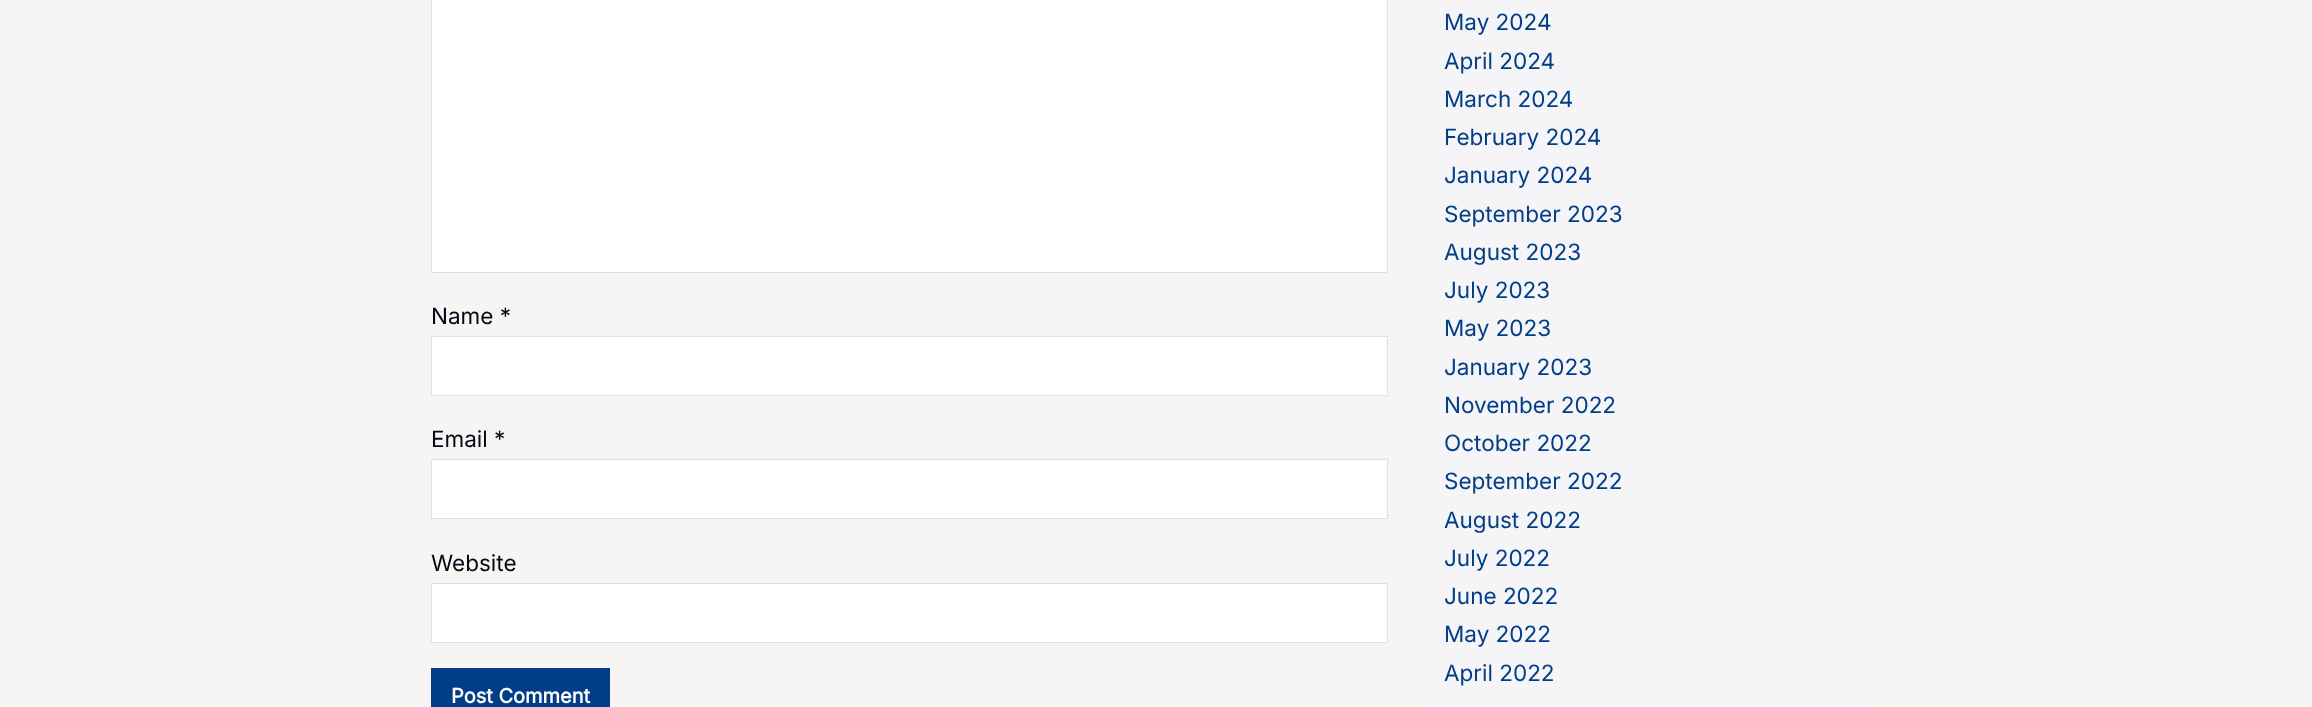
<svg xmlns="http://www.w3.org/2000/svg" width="2312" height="707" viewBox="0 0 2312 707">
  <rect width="100%" height="100%" fill="#f7f5f3"/>
  <path d="M431.5 -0.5h956v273H431.5z" fill="#fff" stroke="#dedee5"/>
  <path d="M431.5 336.5h956v59H431.5z" fill="#fff" stroke="#dedee5"/>
  <path d="M431.5 459.5h956v59H431.5z" fill="#fff" stroke="#dedee5"/>
  <path d="M431.5 583.5h956v59H431.5z" fill="#fff" stroke="#dedee5"/>
  <path d="M431 668h179v39H431z" fill="#023e87"/>
  <path d="M1419 0h462v707H1419z" fill="#f5f5f7"/>
  <g font-family="Inter" font-size="22.5" fill="#000914">
    <text x="431" y="324">Name *</text>
    <text x="431" y="447">Email *</text>
    <text x="431" y="571">Website</text>
  </g>
  <text x="451" y="703" font-family="Inter" font-size="20" font-weight="bold" fill="#fff">Post Comment</text>
  <g font-family="Inter" font-size="22.5" fill="#023e87">
    <text x="1444" y="30">May 2024</text>
    <text x="1444" y="69">April 2024</text>
    <text x="1444" y="107">March 2024</text>
    <text x="1444" y="145">February 2024</text>
    <text x="1444" y="183">January 2024</text>
    <text x="1444" y="222">September 2023</text>
    <text x="1444" y="260">August 2023</text>
    <text x="1444" y="298">July 2023</text>
    <text x="1444" y="336">May 2023</text>
    <text x="1444" y="375">January 2023</text>
    <text x="1444" y="413">November 2022</text>
    <text x="1444" y="451">October 2022</text>
    <text x="1444" y="489">September 2022</text>
    <text x="1444" y="528">August 2022</text>
    <text x="1444" y="566">July 2022</text>
    <text x="1444" y="604">June 2022</text>
    <text x="1444" y="642">May 2022</text>
    <text x="1444" y="681">April 2022</text>
  </g>
</svg>
